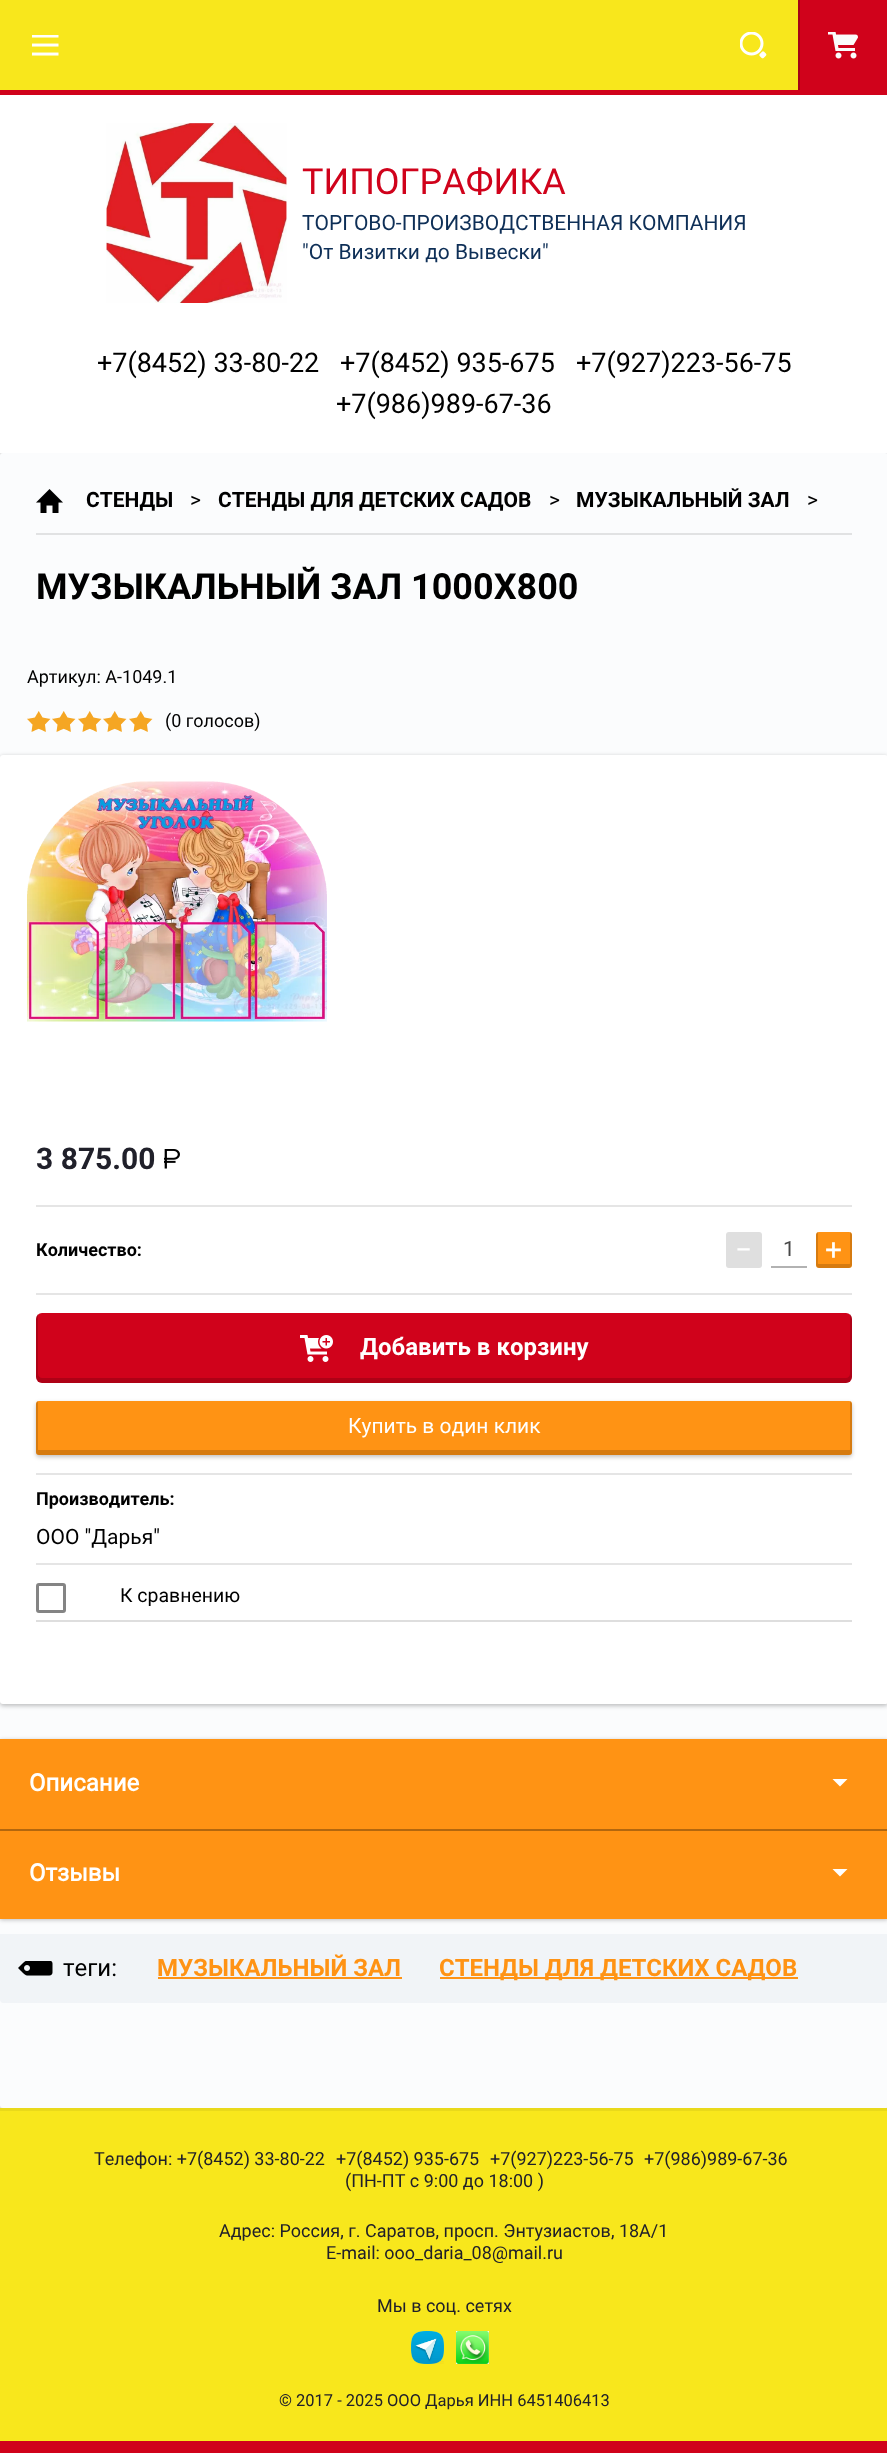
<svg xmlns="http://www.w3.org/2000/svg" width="887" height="2453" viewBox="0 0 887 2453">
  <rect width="100%" height="100%" fill="#e3e3e3"/>
  <path d="M0 95h887v358H0z" fill="#fff"/>
  <path d="M0 90h887v5H0z" fill="#d0021b"/>
  <path d="M0 0h798v90H0z" fill="#f8e71c"/>
  <image x="32" y="35" width="27" height="21" href="img/1.png"/>
  <image x="740" y="32" width="27" height="27" href="img/2.png"/>
  <path d="M798 0h2v90H798z" fill="#a60216"/>
  <path d="M800 0h87v90H800z" fill="#d0021b"/>
  <image x="828" y="32" width="30" height="27" href="img/3.png"/>
  <image x="106" y="123" width="181" height="180" href="img/4.png"/>
  <rect y="453" width="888" height="1655" rx="3" fill="#fbfcfd"/>
  <path d="M36 533h816v2H36z" fill="#e1e2e3"/>
  <image x="36" y="489" width="27" height="24" href="img/5.png"/>
  <image x="27" y="711" width="126" height="21" href="img/6.png"/>
  <rect y="756" width="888" height="950" rx="3" fill="#0000003d" filter="blur(2px)"/>
  <rect y="755" width="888" height="949" rx="3" fill="#fff"/>
  <image x="27" y="781" width="300" height="241" href="img/7.png"/>
  <image x="164" y="1149" width="16" height="20" href="img/8.png"/>
  <path d="M36 1205h816v2H36z" fill="#e5e5e5"/>
  <path d="M36 1293h816v2H36z" fill="#e5e5e5"/>
  <rect x="726" y="1232" width="36" height="36" rx="3" fill="#dfdfdf"/>
  <path d="M771 1266h36v2H771z" fill="#b2b2b2"/>
  <rect x="816" y="1232" width="36" height="36" rx="3" fill="#ff9314"/>
  <path d="M850 1232V1258C850 1265.5 851.5 1264 844 1264H824C816.5 1264 818 1265.5 818 1258V1232C817 1232.5 816 1233.5 816 1235V1265C816 1266.5 817.5 1268 819 1268H849C850.5 1268 852 1266.5 852 1265V1235C852 1233.5 851 1232.5 850 1232Z" fill="#00000029"/>
  <rect x="36" y="1313" width="816" height="70" rx="6" fill="#d0021b"/>
  <path d="M38 1314C37 1315 36 1317 36 1319V1377C36 1380 39 1383 42 1383H846C849 1383 852 1380 852 1377V1319C852 1317 851 1315 850 1314V1374C850 1376 848 1378 846 1378H42C40 1378 38 1376 38 1374Z" fill="#00000029"/>
  <image x="300" y="1335" width="33" height="27" href="img/9.png"/>
  <rect x="36" y="1403" width="816" height="54" rx="3" fill="#0000003d" filter="blur(2px)"/>
  <rect x="36" y="1401" width="816" height="54" rx="3" fill="#ff9314"/>
  <path d="M38 1401C37 1402 36 1403 36 1404V1452C36 1454 37 1455 39 1455H849C851 1455 852 1454 852 1452V1404C852 1403 851 1402 850 1401V1449C850 1450 850 1450 849 1450H39C38 1450 38 1450 38 1449Z" fill="#00000029"/>
  <path d="M36 1473h816v2H36z" fill="#e5e5e5"/>
  <path d="M36 1563h816v2H36z" fill="#e5e5e5"/>
  <path d="M36 1620h816v2H36z" fill="#dedede"/>
  <rect x="37.5" y="1584.5" width="27" height="27" rx="1.5" fill="none" stroke="#848484" stroke-width="3"/>
  <path d="M0 1740h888v180H0z" fill="#0000003d" filter="blur(2px)"/>
  <path d="M0 1739h887v180H0z" fill="#ff9314"/>
  <path d="M832.5 1779H847.5L840 1786.5Z" fill="#fff"/>
  <path d="M0 1829h887v2H0z" fill="#b3670e"/>
  <path d="M832.5 1869H847.5L840 1876.5Z" fill="#fff"/>
  <path d="M0 1934H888V2000C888 2001.5 886.5 2003 885 2003H3C1.5 2003 0 2001.5 0 2000Z" fill="#f1f4f7"/>
  <image x="18" y="1961" width="35" height="15" href="img/10.png"/>
  <path d="M158 1977h244v2H158z" fill="#ff9314"/>
  <path d="M440 1977h358v2H440z" fill="#ff9314"/>
  <path d="M0 2111h887v330H0z" fill="#f8e71c"/>
  <path d="M0 2108h887v3H0z" fill="#e9d91a"/>
  <image x="411" y="2331" width="33" height="33" href="img/11.png"/>
  <image x="456" y="2331" width="33" height="33" href="img/12.png"/>
  <path d="M0 2441h887v12H0z" fill="#d0021b"/>
  <text x="302" y="194" font-family="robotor" font-size="36" fill="#d0021b">ТИПОГРАФИКА</text>
  <g font-family="robotor" font-size="21" fill="#0e2f57">
    <text x="302" y="230">ТОРГОВО-ПРОИЗВОДСТВЕННАЯ КОМПАНИЯ</text>
    <text x="302" y="259">"От Визитки до Вывески"</text>
  </g>
  <g font-family="robotor" font-size="27" fill="#000">
    <text x="97" y="372">+7(8452) 33-80-22</text>
    <text x="340" y="372">+7(8452) 935-675</text>
    <text x="576" y="372">+7(927)223-56-75</text>
    <text x="336" y="413">+7(986)989-67-36</text>
  </g>
  <text x="86" y="507" font-family="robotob" font-size="21" font-weight="bold" fill="#000">СТЕНДЫ</text>
  <text x="190" y="507" font-family="robotor" font-size="21" fill="#000">&gt;</text>
  <text x="218" y="507" font-family="robotob" font-size="21" font-weight="bold" fill="#000">СТЕНДЫ ДЛЯ ДЕТСКИХ САДОВ</text>
  <text x="549" y="507" font-family="robotor" font-size="21" fill="#000">&gt;</text>
  <text x="576" y="507" font-family="robotob" font-size="21" font-weight="bold" fill="#000">МУЗЫКАЛЬНЫЙ ЗАЛ</text>
  <text x="807" y="507" font-family="robotor" font-size="21" fill="#000">&gt;</text>
  <text x="36" y="599" font-family="robotob" font-size="36" font-weight="bold" fill="#000">МУЗЫКАЛЬНЫЙ ЗАЛ 1000X800</text>
  <g font-family="robotor" font-size="18" fill="#000">
    <text x="27" y="683">Артикул: А-1049.1</text>
    <text x="165" y="727">(0 голосов)</text>
  </g>
  <text x="36" y="1169" font-family="robotob" font-size="30" font-weight="bold" fill="#20202a">3 875.00</text>
  <text x="36" y="1256" font-family="robotob" font-size="18" font-weight="bold" fill="#000">Количество:</text>
  <text x="735" y="1260" font-family="robotor" font-size="30" fill="#fff">−</text>
  <text x="783" y="1256" font-family="robotor" font-size="21" fill="#484848">1</text>
  <text x="825" y="1260" font-family="robotor" font-size="30" fill="#fff">+</text>
  <text x="360" y="1355" font-family="robotob" font-size="24" font-weight="bold" fill="#fff">Добавить в корзину</text>
  <text x="348" y="1433" font-family="robotor" font-size="21" fill="#fff">Купить в один клик</text>
  <text x="36" y="1505" font-family="robotob" font-size="18" font-weight="bold" fill="#000">Производитель:</text>
  <text x="36" y="1544" font-family="robotor" font-size="21" fill="#000">ООО "Дарья"</text>
  <text x="120" y="1602" font-family="robotor" font-size="19.5" fill="#000">К сравнению</text>
  <g font-family="robotor" font-size="24" font-weight="bold" fill="#fff">
    <text x="29" y="1791">Описание</text>
    <text x="29" y="1881">Отзывы</text>
  </g>
  <text x="63" y="1976" font-family="robotor" font-size="24" fill="#000">теги:</text>
  <g font-family="robotob" font-size="24" font-weight="bold" fill="#ff9314">
    <text x="157" y="1976">МУЗЫКАЛЬНЫЙ ЗАЛ</text>
    <text x="439" y="1976">СТЕНДЫ ДЛЯ ДЕТСКИХ САДОВ</text>
  </g>
  <g font-family="robotor" font-size="18" fill="#20202a">
    <text x="94" y="2165">Телефон: +7(8452) 33-80-22</text>
    <text x="336" y="2165">+7(8452) 935-675</text>
    <text x="490" y="2165">+7(927)223-56-75</text>
    <text x="644" y="2165">+7(986)989-67-36</text>
    <text x="345" y="2187">(ПН-ПТ с 9:00 до 18:00 )</text>
    <text x="219" y="2237">Адрес: Россия, г. Саратов, просп. Энтузиастов, 18А/1</text>
    <text x="326" y="2259">Е-mail: ooo_daria_08@mail.ru</text>
    <text x="377" y="2312">Мы в соц. сетях</text>
  </g>
  <text x="279" y="2406" font-family="robotor" font-size="16.5" fill="#20202a">© 2017 - 2025 ООО Дарья ИНН 6451406413</text>
</svg>
